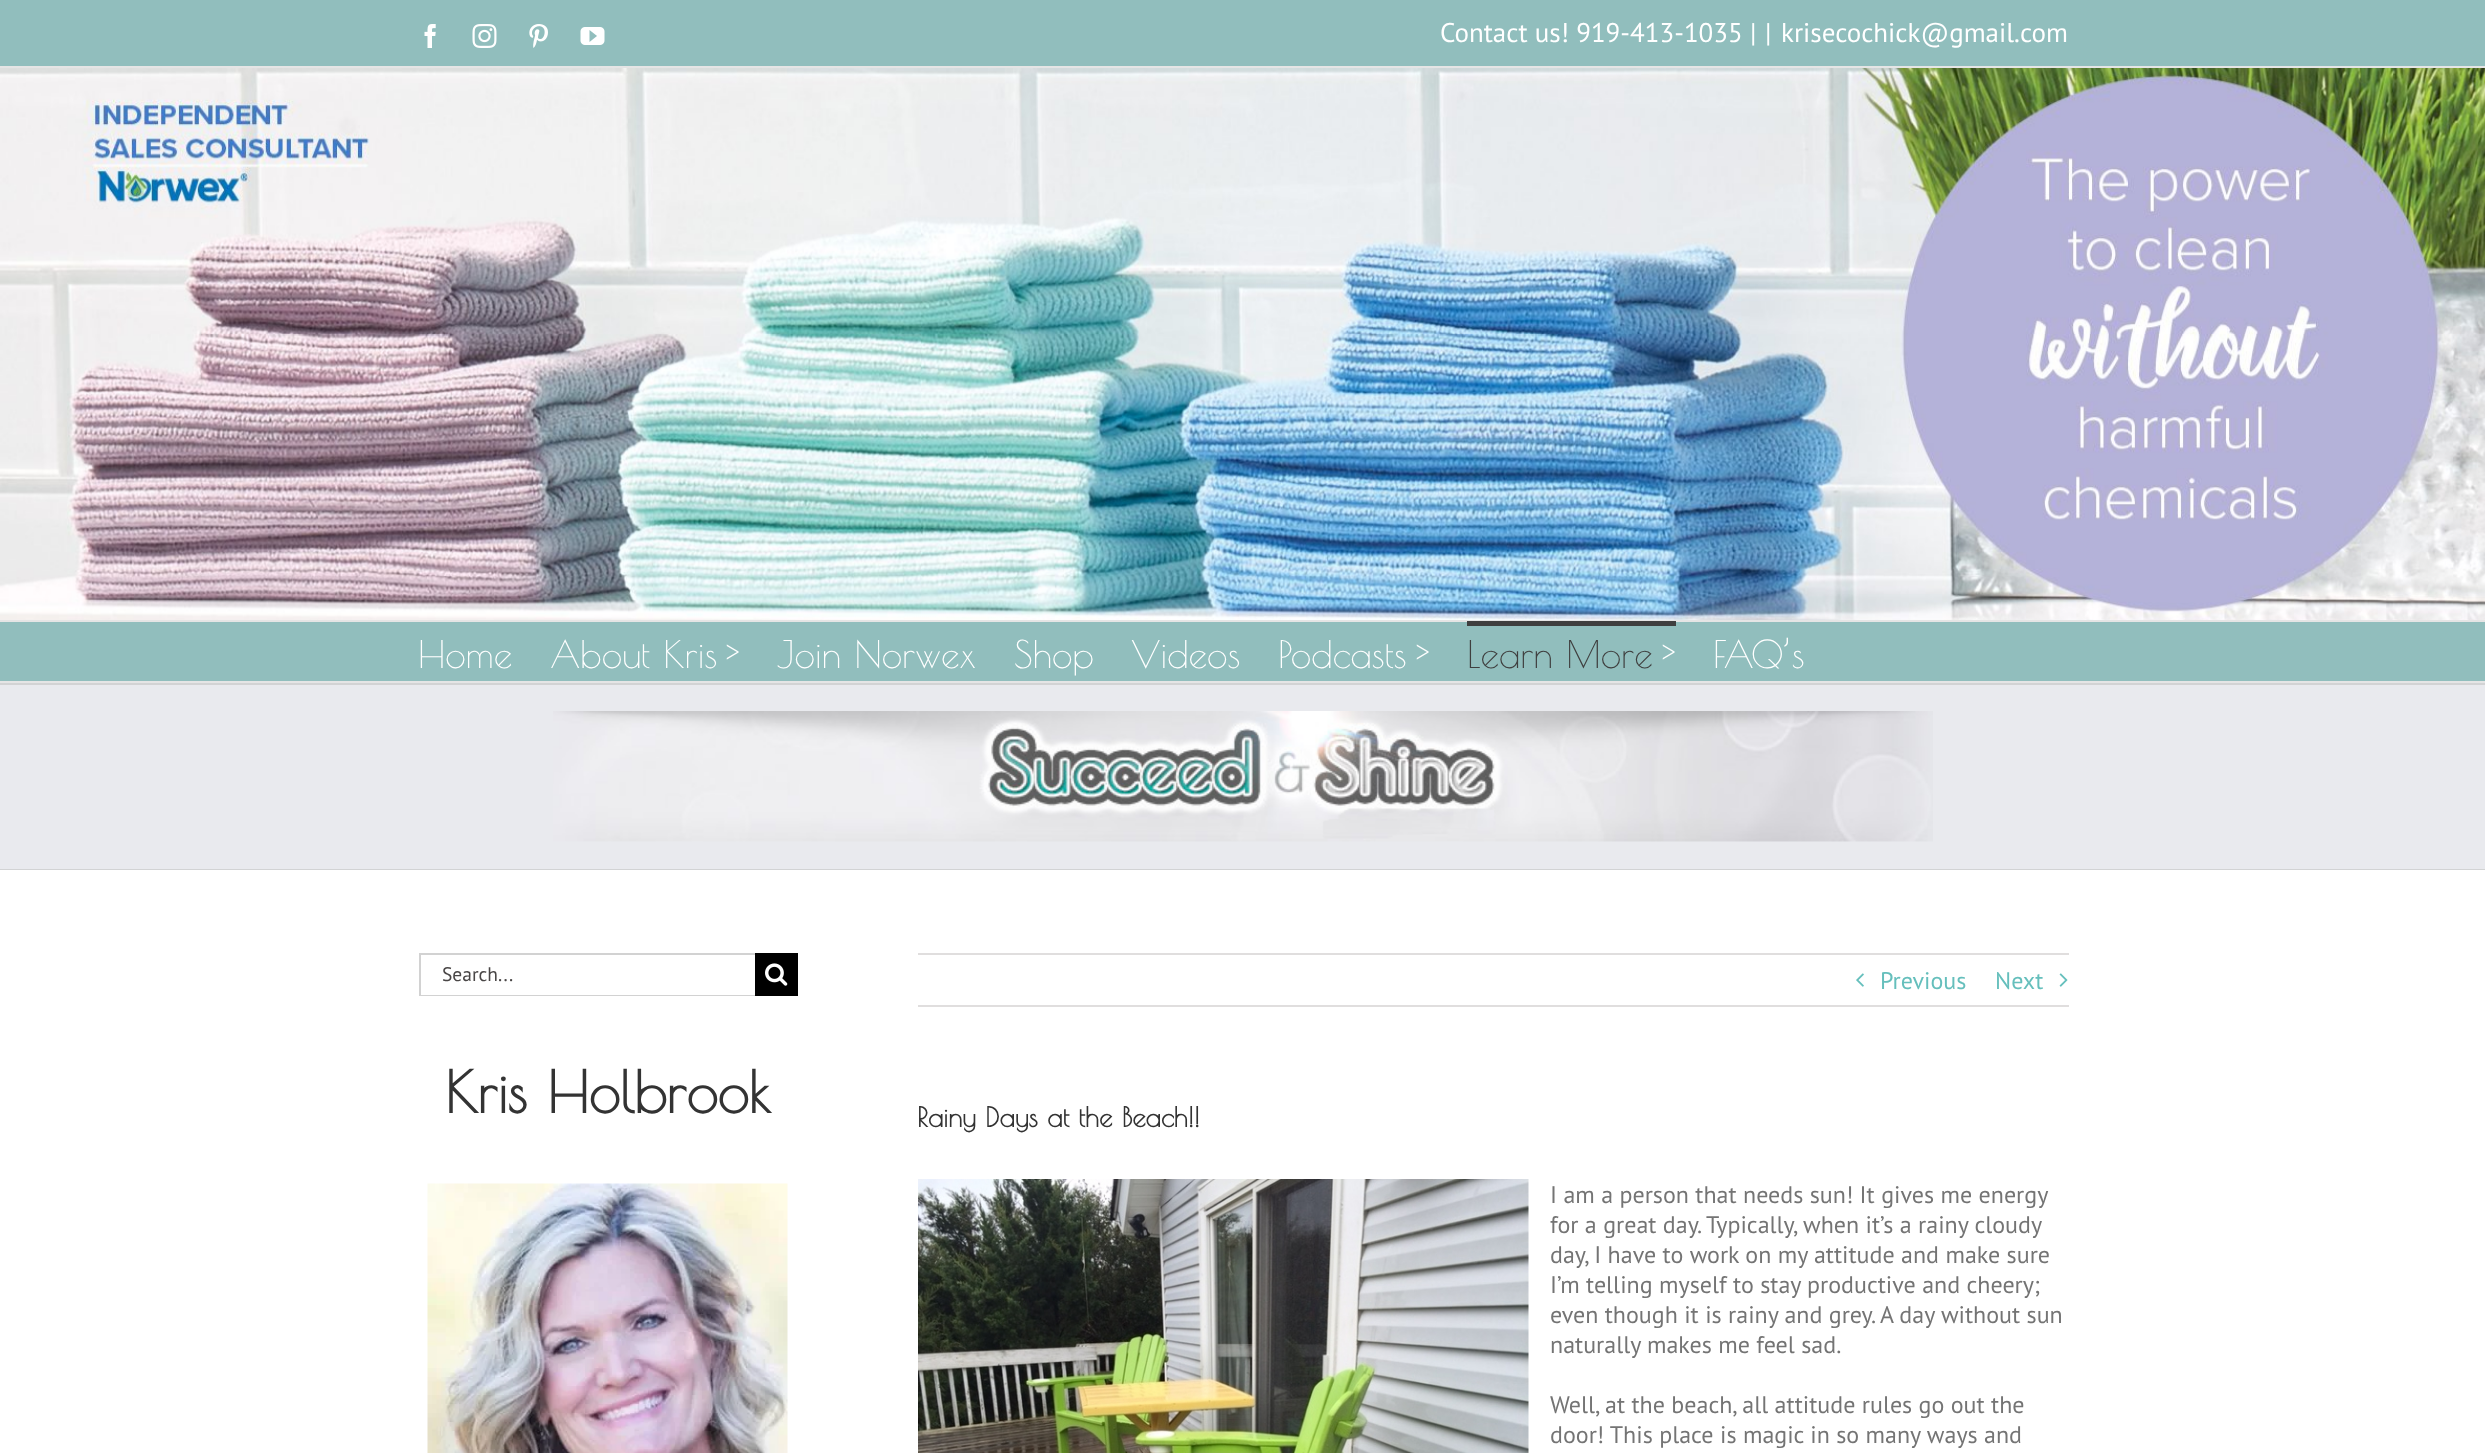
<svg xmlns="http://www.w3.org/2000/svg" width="2485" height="1453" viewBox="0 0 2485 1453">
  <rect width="100%" height="100%" fill="#e9eaee"/>
  <path d="M0 0h2485v66H0z" fill="#91bebd"/>
  <path d="M0 66h2485v2H0z" fill="#e5e5e5"/>
  <image x="424" y="24" width="12" height="24" href="img/1.png"/>
  <image x="472" y="24" width="25" height="24" href="img/2.png"/>
  <image x="529" y="24" width="19" height="24" href="img/3.png"/>
  <image x="580" y="27" width="25" height="18" href="img/4.png"/>
  <image x="0" y="68" width="2485" height="552" href="img/5.png"/>
  <path d="M0 620h2485v2H0z" fill="#e5e5e5"/>
  <path d="M0 622h2485v59H0z" fill="#91bebd"/>
  <path d="M0 681h2485v2H0z" fill="#e5e5e5"/>
  <path d="M1467 621h209v5H1467z" fill="#3f3f3f"/>
  <image x="553" y="711" width="1380" height="131" href="img/6.png"/>
  <path d="M0 683h2485v2H0z" fill="#d2d3d4"/>
  <path d="M0 869h2485v1H0z" fill="#d2d3d4"/>
  <path d="M0 870h2485v583H0z" fill="#fff"/>
  <path d="M419 953h336v2H419z" fill="#d2d2d2"/>
  <path d="M419 995h336v1H419z" fill="#d2d2d2"/>
  <path d="M419 953h2v43H419z" fill="#d2d2d2"/>
  <path d="M755 953h43v43H755z" fill="#000"/>
  <image x="765" y="963" width="23" height="23" href="img/7.png"/>
  <image x="427" y="1183" width="361" height="270" href="img/8.png"/>
  <path d="M918 953h1151v2H918z" fill="#e0dede"/>
  <path d="M918 1005h1151v2H918z" fill="#e0dede"/>
  <image x="1856" y="973" width="8" height="14" href="img/9.png"/>
  <image x="2059" y="973" width="9" height="14" href="img/10.png"/>
  <image x="918" y="1179" width="611" height="274" href="img/11.png"/>
  <g font-family="PT Sans" font-size="27" fill="#fff">
    <text x="1440" y="42">Contact us! 919-413-1035 |</text>
    <text x="1765" y="42">|</text>
    <text x="1781" y="42">krisecochick@gmail.com</text>
  </g>
  <g font-family="Poiret One" font-size="37.5" fill="#fff">
    <text x="418" y="668">Home</text>
    <text x="550" y="668">About Kris</text>
    <text x="724" y="668">&gt;</text>
    <text x="777" y="668">Join Norwex</text>
    <text x="1014" y="668">Shop</text>
    <text x="1131" y="668">Videos</text>
    <text x="1278" y="668">Podcasts</text>
    <text x="1414" y="668">&gt;</text>
  </g>
  <text x="1467" y="668" font-family="Poiret One" font-size="37.5" fill="#3f3f3f">Learn More</text>
  <g font-family="Poiret One" font-size="37.5" fill="#fff">
    <text x="1660" y="668">&gt;</text>
    <text x="1713" y="668">FAQ’s</text>
  </g>
  <text x="442" y="981" font-family="PT Sans" font-size="19.5" fill="#494646">Search...</text>
  <text x="445" y="1113" font-family="Poiret One" font-size="57" font-weight="bold" fill="#333">Kris Holbrook</text>
  <g font-family="PT Sans" font-size="24" fill="#65bfbc">
    <text x="1880" y="989">Previous</text>
    <text x="1995" y="989">Next</text>
  </g>
  <text x="917" y="1127" font-family="Poiret One" font-size="27" font-weight="bold" fill="#333">Rainy Days at the Beach!!</text>
  <g font-family="PT Sans" font-size="24" fill="#747474">
    <text x="1550" y="1203">I am a person that needs sun! It gives me energy</text>
    <text x="1550" y="1233">for a great day. Typically, when it’s a rainy cloudy</text>
    <text x="1550" y="1263">day, I have to work on my attitude and make sure</text>
    <text x="1550" y="1293">I’m telling myself to stay productive and cheery;</text>
    <text x="1550" y="1323">even though it is rainy and grey. A day without sun</text>
    <text x="1550" y="1353">naturally makes me feel sad.</text>
    <text x="1550" y="1413">Well, at the beach, all attitude rules go out the</text>
    <text x="1550" y="1443">door! This place is magic in so many ways and</text>
  </g>
</svg>
